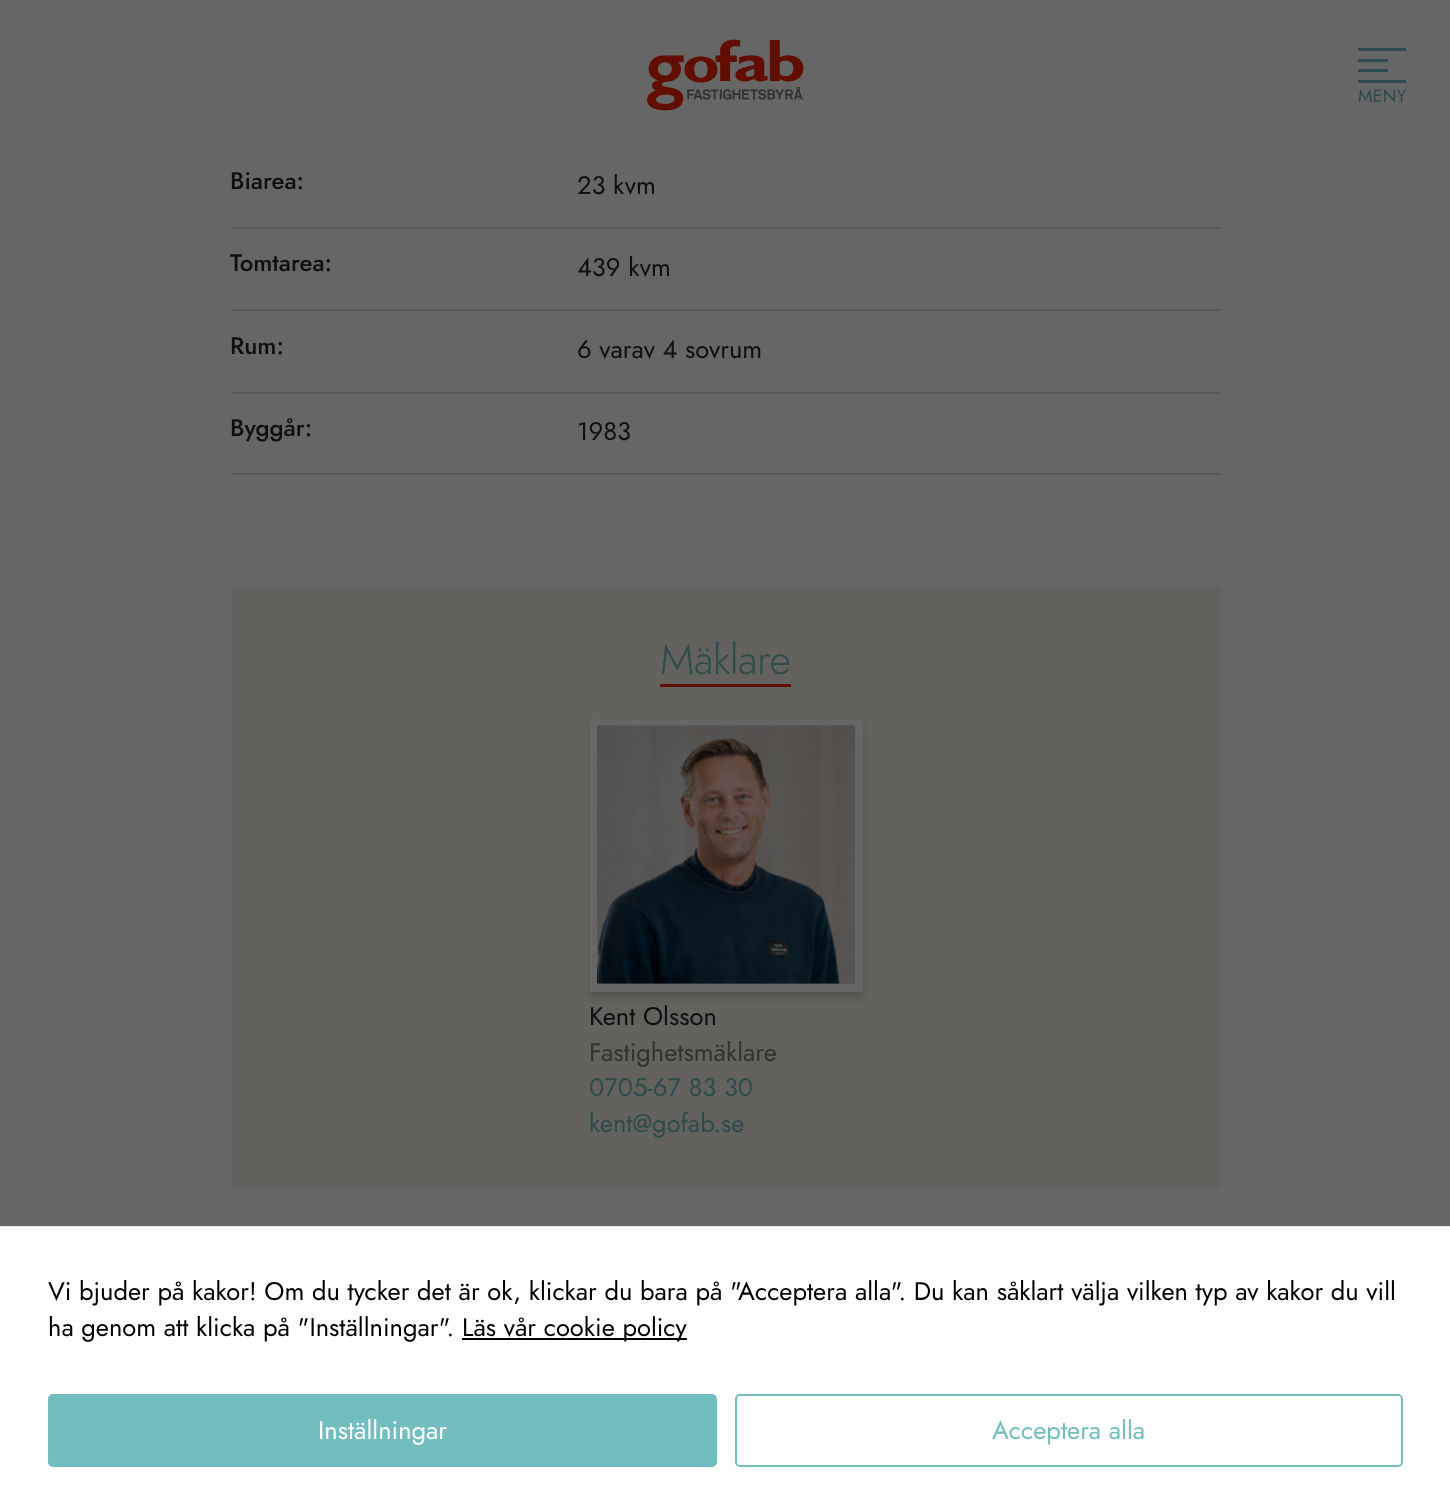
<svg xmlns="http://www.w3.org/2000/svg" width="1450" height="1503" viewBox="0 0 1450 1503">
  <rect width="100%" height="100%" fill="#666"/>
  <image x="647" y="39" width="157" height="72" href="img/1.png"/>
  <path d="M1358 48h48v3H1358z" fill="#2e4c4c"/>
  <path d="M1358 59h30v3H1358z" fill="#2e4c4c"/>
  <path d="M1358 69h30v3H1358z" fill="#2e4c4c"/>
  <path d="M1358 80h48v3H1358z" fill="#2e4c4c"/>
  <path d="M231 227h990v2H231z" fill="#585858"/>
  <path d="M231 309h990v2H231z" fill="#585858"/>
  <path d="M231 392h990v2H231z" fill="#585858"/>
  <path d="M231 473h990v2H231z" fill="#585858"/>
  <path d="M231 587h990v601H231z" fill="#63625f"/>
  <path d="M660 684h131v3H660z" fill="#610e00"/>
  <path d="M590 725h273v273H590z" fill="#00000026" filter="blur(3px)"/>
  <path d="M594 723h265v265H594z" fill="none" stroke="#666" stroke-width="8"/>
  <image x="597" y="725" width="258" height="259" href="img/2.png"/>
  <path d="M0 1227h1450v276H0z" fill="#fff"/>
  <path d="M0 1226h1450v1H0z" fill="#e6e6e6"/>
  <path d="M462 1338h225v2H462z" fill="#000"/>
  <rect x="49" y="1395" width="667" height="71" rx="4" fill="#72bdbd" stroke="#72bdbd" stroke-width="2"/>
  <rect x="736" y="1395" width="666" height="71" rx="4" fill="none" stroke="#72bdbd" stroke-width="2"/>
  <text x="1358" y="102" font-family="Jost" font-size="18" fill="#2e4c4c">MENY</text>
  <text x="230" y="189" font-family="Jost" font-size="24" font-weight="500" fill="#0d0f10">Biarea:</text>
  <text x="577" y="194" font-family="Jost" font-size="25.5" fill="#0d0f10">23 kvm</text>
  <text x="230" y="271" font-family="Jost" font-size="24" font-weight="500" fill="#0d0f10">Tomtarea:</text>
  <text x="577" y="276" font-family="Jost" font-size="25.5" fill="#0d0f10">439 kvm</text>
  <text x="230" y="354" font-family="Jost" font-size="24" font-weight="500" fill="#0d0f10">Rum:</text>
  <text x="577" y="358" font-family="Jost" font-size="25.5" fill="#0d0f10">6 varav 4 sovrum</text>
  <text x="230" y="436" font-family="Jost" font-size="24" font-weight="500" fill="#0d0f10">Byggår:</text>
  <text x="577" y="440" font-family="Jost" font-size="25.5" fill="#0d0f10">1983</text>
  <text x="660" y="674" font-family="Jost" font-size="42" font-weight="300" letter-spacing="-0.5" fill="#2e4c4c">Mäklare</text>
  <text x="589" y="1025" font-family="Jost" font-size="25.5" fill="#0d0f10">Kent Olsson</text>
  <text x="589" y="1061" font-family="Jost" font-size="25.5" fill="#323231">Fastighetsmäklare</text>
  <g font-family="Jost" font-size="25.5" fill="#2e4c4c">
    <text x="589" y="1096">0705-67 83 30</text>
    <text x="589" y="1132">kent@gofab.se</text>
  </g>
  <g font-family="Jost" font-size="25.5" fill="#000">
    <text x="48" y="1300">Vi bjuder på kakor! Om du tycker det är ok, klickar du bara på "Acceptera alla". Du kan såklart välja vilken typ av kakor du vill</text>
    <text x="48" y="1336">ha genom att klicka på "Inställningar".</text>
    <text x="462" y="1336">Läs vår cookie policy</text>
  </g>
  <text x="318" y="1439" font-family="Jost" font-size="25.5" fill="#fff">Inställningar</text>
  <text x="992" y="1439" font-family="Jost" font-size="25.5" fill="#72bdbd">Acceptera alla</text>
</svg>
